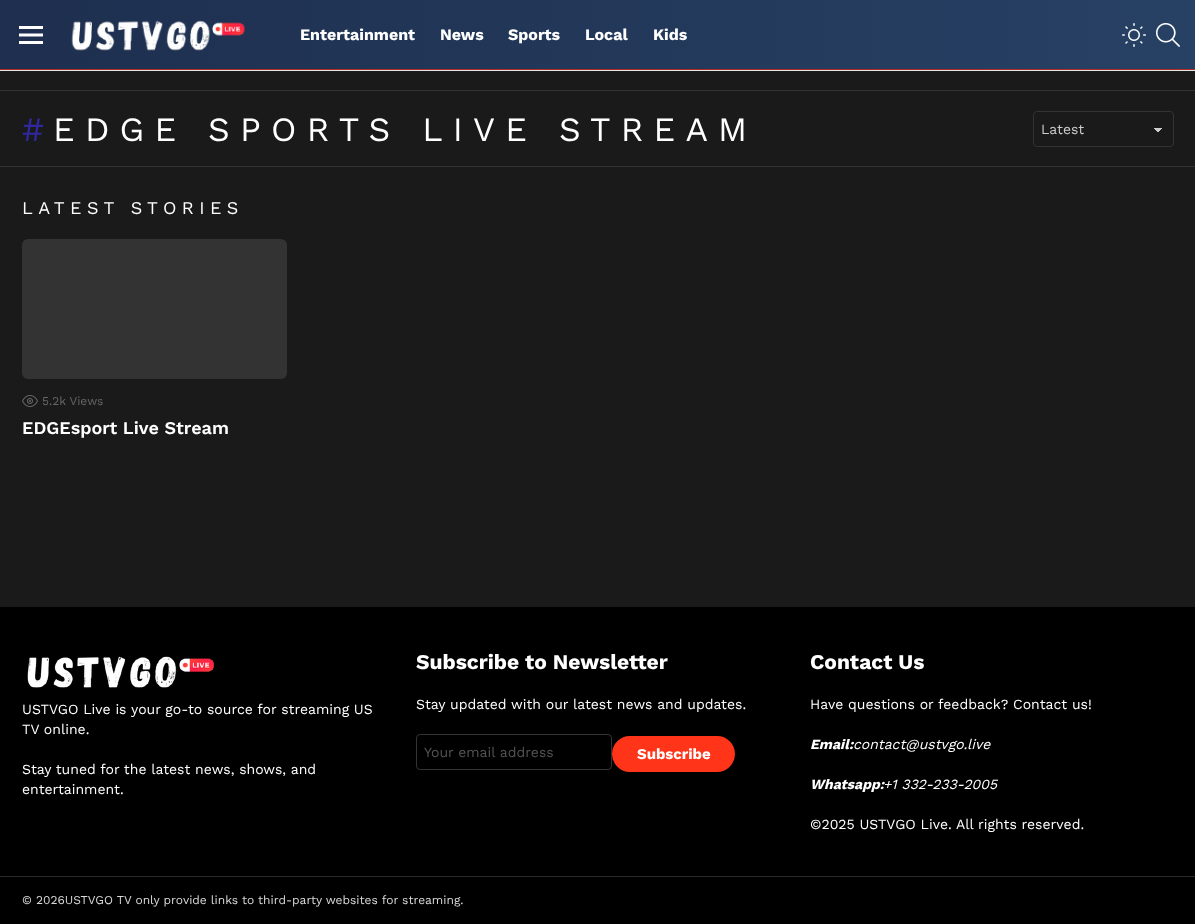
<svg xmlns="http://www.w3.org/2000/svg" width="1195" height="924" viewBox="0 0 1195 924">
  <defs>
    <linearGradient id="g1" gradientUnits="userSpaceOnUse" x1="0" y1="35" x2="1195" y2="34"><stop offset="0" stop-color="#1e2f4f"/><stop offset="1" stop-color="#274164"/></linearGradient>
    <linearGradient id="g2" gradientUnits="userSpaceOnUse" x1="1158" y1="128" x2="1163" y2="132"><stop offset="0.5" stop-color="#ccc"/><stop offset="0.5" stop-color="#1a1a1a"/></linearGradient>
    <linearGradient id="g3" gradientUnits="userSpaceOnUse" x1="1153" y1="132" x2="1158" y2="128"><stop offset="0.5" stop-color="#1a1a1a"/><stop offset="0.5" stop-color="#ccc"/></linearGradient>
  </defs>
  <rect width="100%" height="100%" fill="#1a1a1a"/>
  <path d="M0 0h1195v69H0z" fill="url(#g1)"/>
  <path d="M0 69h1195v1H0z" fill="#b02d27"/>
  <image x="19" y="26" width="24" height="18" href="img/1.png"/>
  <image x="71" y="20" width="174" height="31" href="img/2.png"/>
  <image x="1122" y="23" width="24" height="24" href="img/3.png"/>
  <image x="1156" y="23" width="24" height="24" href="img/4.png"/>
  <path d="M0 70h1195v1H0z" fill="#e6e6e6"/>
  <path d="M0 90h1195v1H0z" fill="#333"/>
  <path d="M1158 128h5v4H1158z" fill="url(#g2)"/>
  <path d="M1153 128h5v4H1153z" fill="url(#g3)"/>
  <rect x="1033.5" y="111.5" width="140" height="35" rx="3.5" fill="none" stroke="#333"/>
  <path d="M0 166h1195v1H0z" fill="#333"/>
  <rect x="22" y="239" width="265" height="140" rx="6" fill="#333"/>
  <image x="22" y="395" width="16" height="12" href="img/5.png"/>
  <path d="M0 607h1195v269H0z" fill="#000"/>
  <image x="27" y="656" width="187" height="32" href="img/6.png"/>
  <rect x="416.5" y="734.5" width="195" height="35" rx="3.5" fill="none" stroke="#333"/>
  <rect x="613" y="737" width="121" height="34" rx="17" fill="#ff3419" stroke="#ff3419" stroke-width="2"/>
  <path d="M0 876h1195v1H0z" fill="#2b2b2b"/>
  <path d="M0 877h1195v47H0z" fill="#000"/>
  <g font-family="Work Sans" font-size="16" font-weight="bold" fill="#fff">
    <text x="300" y="40">Entertainment</text>
    <text x="440" y="40">News</text>
    <text x="508" y="40">Sports</text>
    <text x="585" y="40">Local</text>
    <text x="653" y="40">Kids</text>
  </g>
  <text x="22" y="141" font-family="Work Sans" font-size="34" letter-spacing="10.2" fill="#31279e">#</text>
  <text x="53" y="141" font-family="Work Sans" font-size="34" letter-spacing="10.2" fill="#fff">EDGE SPORTS LIVE STREAM</text>
  <text x="1041" y="134" font-family="Work Sans" font-size="14" fill="#ccc">Latest</text>
  <text x="22" y="214" font-family="Work Sans" font-size="18" letter-spacing="5.4" fill="#fff">LATEST STORIES</text>
  <text x="42" y="405" font-family="Work Sans" font-size="12" fill="#666">5.2k Views</text>
  <text x="22" y="434" font-family="Work Sans" font-size="18" font-weight="600" fill="#fff">EDGEsport Live Stream</text>
  <g font-family="Work Sans" font-size="14" fill="#fff">
    <text x="22" y="714">USTVGO Live is your go-to source for streaming US</text>
    <text x="22" y="734">TV online.</text>
    <text x="22" y="774">Stay tuned for the latest news, shows, and</text>
    <text x="22" y="794">entertainment.</text>
  </g>
  <text x="416" y="669" font-family="Work Sans" font-size="21" font-weight="bold" fill="#fff">Subscribe to Newsletter</text>
  <text x="416" y="709" font-family="Work Sans" font-size="14" fill="#fff">Stay updated with our latest news and updates.</text>
  <text x="424" y="757" font-family="Work Sans" font-size="14" fill="#545454">Your email address</text>
  <text x="637" y="759" font-family="Work Sans" font-size="15" font-weight="bold" fill="#fff">Subscribe</text>
  <text x="810" y="669" font-family="Work Sans" font-size="21" font-weight="bold" fill="#fff">Contact Us</text>
  <text x="810" y="709" font-family="Work Sans" font-size="14" fill="#fff">Have questions or feedback? Contact us!</text>
  <text x="810" y="749" font-family="Work Sans" font-size="14" font-weight="bold" font-style="italic" fill="#fff">Email:</text>
  <text x="853" y="749" font-family="Work Sans" font-size="14" font-style="italic" fill="#fff">contact@ustvgo.live</text>
  <text x="810" y="789" font-family="Work Sans" font-size="14" font-weight="bold" font-style="italic" fill="#fff">Whatsapp:</text>
  <text x="883" y="789" font-family="Work Sans" font-size="14" font-style="italic" fill="#fff">+1 332-233-2005</text>
  <text x="810" y="829" font-family="Work Sans" font-size="14" fill="#fff">©2025 USTVGO Live. All rights reserved.</text>
  <text x="22" y="904" font-family="Work Sans" font-size="12" fill="#dbdbdb">© 2026USTVGO TV only provide links to third-party websites for streaming.</text>
</svg>
